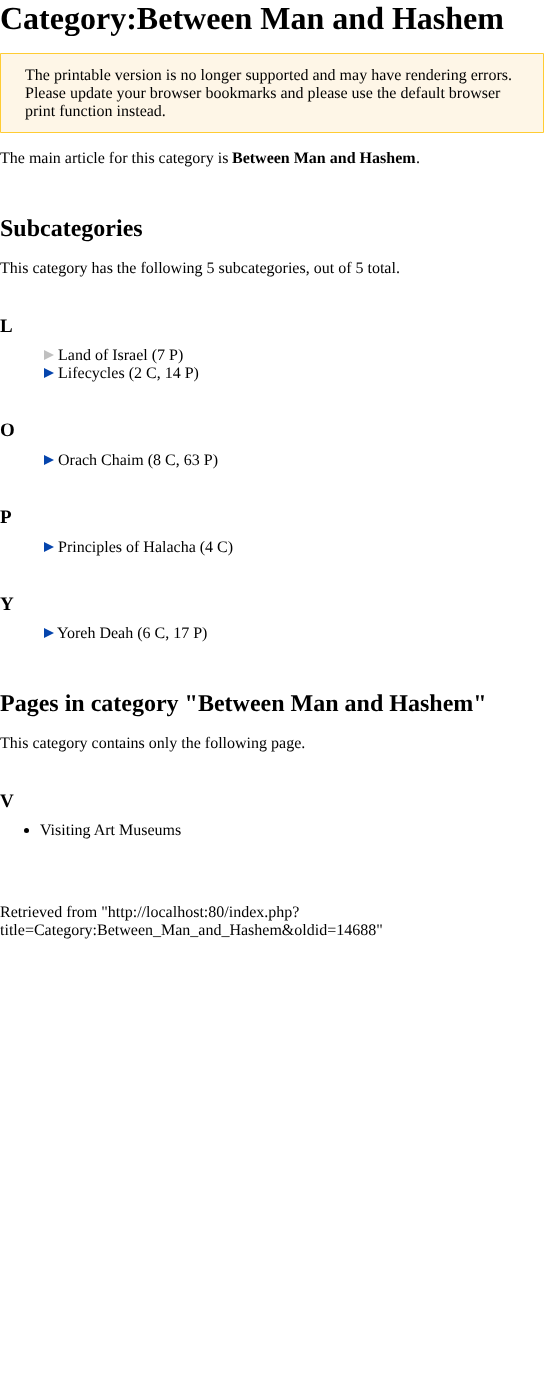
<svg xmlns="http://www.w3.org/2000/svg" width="544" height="1395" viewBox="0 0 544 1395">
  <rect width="100%" height="100%" fill="#fff"/>
  <path d="M0.5 53.5h543v79H0.5z" fill="#fef6e7" stroke="#fc3"/>
  <path d="M44 360V350L54 355Z" fill="#c0c0c0"/>
  <path d="M44 378V368L54 373Z" fill="#0645ad"/>
  <path d="M44 465V455L54 460Z" fill="#0645ad"/>
  <path d="M44 552V542L54 547Z" fill="#0645ad"/>
  <path d="M44 638V628L54 633Z" fill="#0645ad"/>
  <circle cx="26.5" cy="830.5" r="2.5" fill="#000"/>
  <text x="0" y="29" font-family="Liberation Serif" font-size="32" font-weight="bold" fill="#000">Category:Between Man and Hashem</text>
  <g font-family="Liberation Serif" font-size="16" fill="#000">
    <text x="25" y="80">The printable version is no longer supported and may have rendering errors.</text>
    <text x="25" y="98">Please update your browser bookmarks and please use the default browser</text>
    <text x="25" y="116">print function instead.</text>
    <text x="0" y="163">The main article for this category is</text>
  </g>
  <text x="232" y="163" font-family="Liberation Serif" font-size="16" font-weight="bold" fill="#000">Between Man and Hashem</text>
  <text x="416" y="163" font-family="Liberation Serif" font-size="16" fill="#000">.</text>
  <text x="0" y="236" font-family="Liberation Serif" font-size="24" font-weight="bold" fill="#000">Subcategories</text>
  <text x="0" y="273" font-family="Liberation Serif" font-size="16" fill="#000">This category has the following 5 subcategories, out of 5 total.</text>
  <text x="0" y="332" font-family="Liberation Serif" font-size="19" font-weight="bold" fill="#000">L</text>
  <g font-family="Liberation Serif" font-size="16" fill="#000">
    <text x="58" y="360">Land of Israel (7 P)</text>
    <text x="58" y="378">Lifecycles (2 C, 14 P)</text>
  </g>
  <text x="0" y="436" font-family="Liberation Serif" font-size="19" font-weight="bold" fill="#000">O</text>
  <text x="58" y="465" font-family="Liberation Serif" font-size="16" fill="#000">Orach Chaim (8 C, 63 P)</text>
  <text x="0" y="523" font-family="Liberation Serif" font-size="19" font-weight="bold" fill="#000">P</text>
  <text x="58" y="552" font-family="Liberation Serif" font-size="16" fill="#000">Principles of Halacha (4 C)</text>
  <text x="0" y="610" font-family="Liberation Serif" font-size="19" font-weight="bold" fill="#000">Y</text>
  <text x="57" y="638" font-family="Liberation Serif" font-size="16" fill="#000">Yoreh Deah (6 C, 17 P)</text>
  <text x="0" y="711" font-family="Liberation Serif" font-size="24" font-weight="bold" fill="#000">Pages in category "Between Man and Hashem"</text>
  <text x="0" y="748" font-family="Liberation Serif" font-size="16" fill="#000">This category contains only the following page.</text>
  <text x="0" y="807" font-family="Liberation Serif" font-size="19" font-weight="bold" fill="#000">V</text>
  <g font-family="Liberation Serif" font-size="16" fill="#000">
    <text x="40" y="835">Visiting Art Museums</text>
    <text x="0" y="917">Retrieved from "http://localhost:80/index.php?</text>
    <text x="0" y="935">title=Category:Between_Man_and_Hashem&amp;oldid=14688"</text>
  </g>
</svg>
